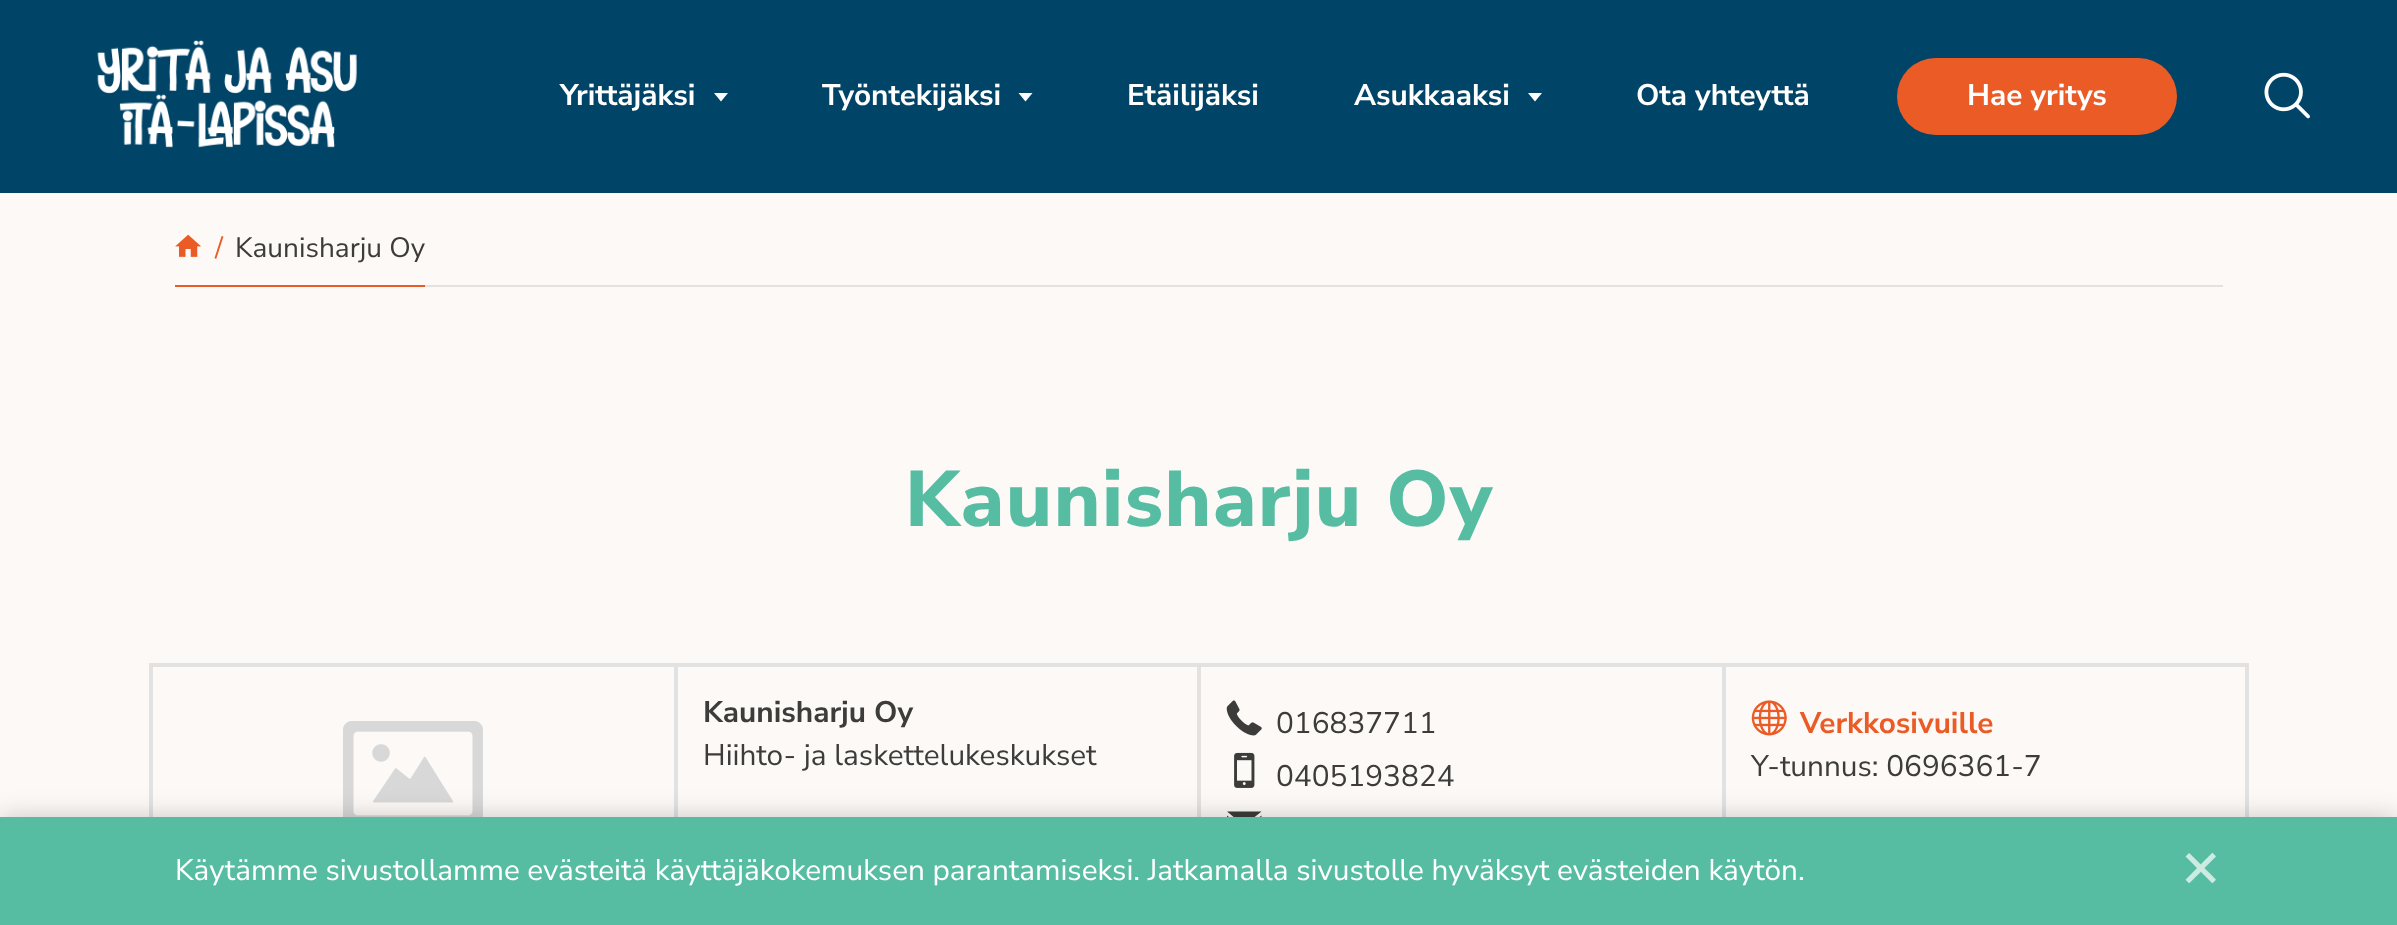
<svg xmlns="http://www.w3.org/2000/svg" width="2397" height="925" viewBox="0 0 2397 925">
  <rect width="100%" height="100%" fill="#fcf9f7"/>
  <path d="M0 0h2397v193H0z" fill="#004467"/>
  <image x="97" y="40" width="260" height="108" href="img/1.png"/>
  <path d="M714 93H728L721 101.5Z" fill="#fff"/>
  <path d="M1018.5 93H1032.5L1025.5 101.5Z" fill="#fff"/>
  <path d="M1528 93H1542L1535 101.5Z" fill="#fff"/>
  <rect x="1897" y="58" width="280" height="77" rx="38.5" fill="#eb5b25"/>
  <image x="2264" y="72" width="46" height="47" href="img/2.png"/>
  <path d="M425 285h1798v2H425z" fill="#e2e2e2"/>
  <path d="M175 285h250v2H175z" fill="#eb5b25"/>
  <image x="175" y="234" width="26" height="23" href="img/3.png"/>
  <path d="M150 664h2098v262H150z" fill="none" stroke="#e2e2e2" stroke-width="2"/>
  <path d="M152 666h523v215H152z" fill="none" stroke="#e2e2e2" stroke-width="2"/>
  <image x="343" y="721" width="140" height="96" href="img/4.png"/>
  <path d="M677 666h521v215H677z" fill="none" stroke="#e2e2e2" stroke-width="2"/>
  <path d="M1200 666h523v215H1200z" fill="none" stroke="#e2e2e2" stroke-width="2"/>
  <image x="1226" y="700" width="36" height="36" href="img/5.png"/>
  <image x="1234" y="752" width="21" height="36" href="img/6.png"/>
  <path d="M1261.5 811.5H1227L1244 825.5ZM1244 829.5L1227 815.5V837.5H1261.5V815.5Z" fill="#3c3c3b"/>
  <path d="M1725 666h521v215H1725z" fill="none" stroke="#e2e2e2" stroke-width="2"/>
  <image x="1751" y="700" width="36" height="36" href="img/7.png"/>
  <path d="M0 817h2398v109H0z" fill="#00000033" filter="blur(13px)"/>
  <path d="M0 817h2397v108H0z" fill="#57bda2"/>
  <g font-family="Nunito Sans" font-size="29.75" font-weight="bold" fill="#fff">
    <text x="560" y="105">Yrittäjäksi</text>
    <text x="822" y="105">Työntekijäksi</text>
    <text x="1127" y="105">Etäilijäksi</text>
    <text x="1354" y="105">Asukkaaksi</text>
    <text x="1636" y="105">Ota yhteyttä</text>
    <text x="1967" y="105">Hae yritys</text>
  </g>
  <text x="215" y="257" font-family="Nunito Sans" font-size="28" fill="#eb5b25">/</text>
  <text x="235" y="257" font-family="Nunito Sans" font-size="28" fill="#3c3c3b">Kaunisharju Oy</text>
  <text x="905" y="526" font-family="Nunito Sans" font-size="78.75" font-weight="800" letter-spacing="1.4" fill="#57bda2">Kaunisharju Oy</text>
  <text x="703" y="722" font-family="Nunito Sans" font-size="29.75" font-weight="bold" fill="#3c3c3b">Kaunisharju Oy</text>
  <g font-family="Nunito Sans" font-size="29.75" fill="#3c3c3b">
    <text x="703" y="765">Hiihto- ja laskettelukeskukset</text>
    <text x="1276" y="733">016837711</text>
    <text x="1276" y="786">0405193824</text>
  </g>
  <text x="1800" y="733" font-family="Nunito Sans" font-size="29.75" font-weight="bold" fill="#eb5b25">Verkkosivuille</text>
  <text x="1751" y="776" font-family="Nunito Sans" font-size="29.75" fill="#3c3c3b">Y-tunnus: 0696361-7</text>
  <text x="175" y="880" font-family="Nunito Sans" font-size="29.75" fill="#fff">Käytämme sivustollamme evästeitä käyttäjäkokemuksen parantamiseksi. Jatkamalla sivustolle hyväksyt evästeiden käytön.</text>
  <text x="2179" y="887" font-family="DejaVu Sans" font-size="52" fill="#cdebe3">✕</text>
</svg>
